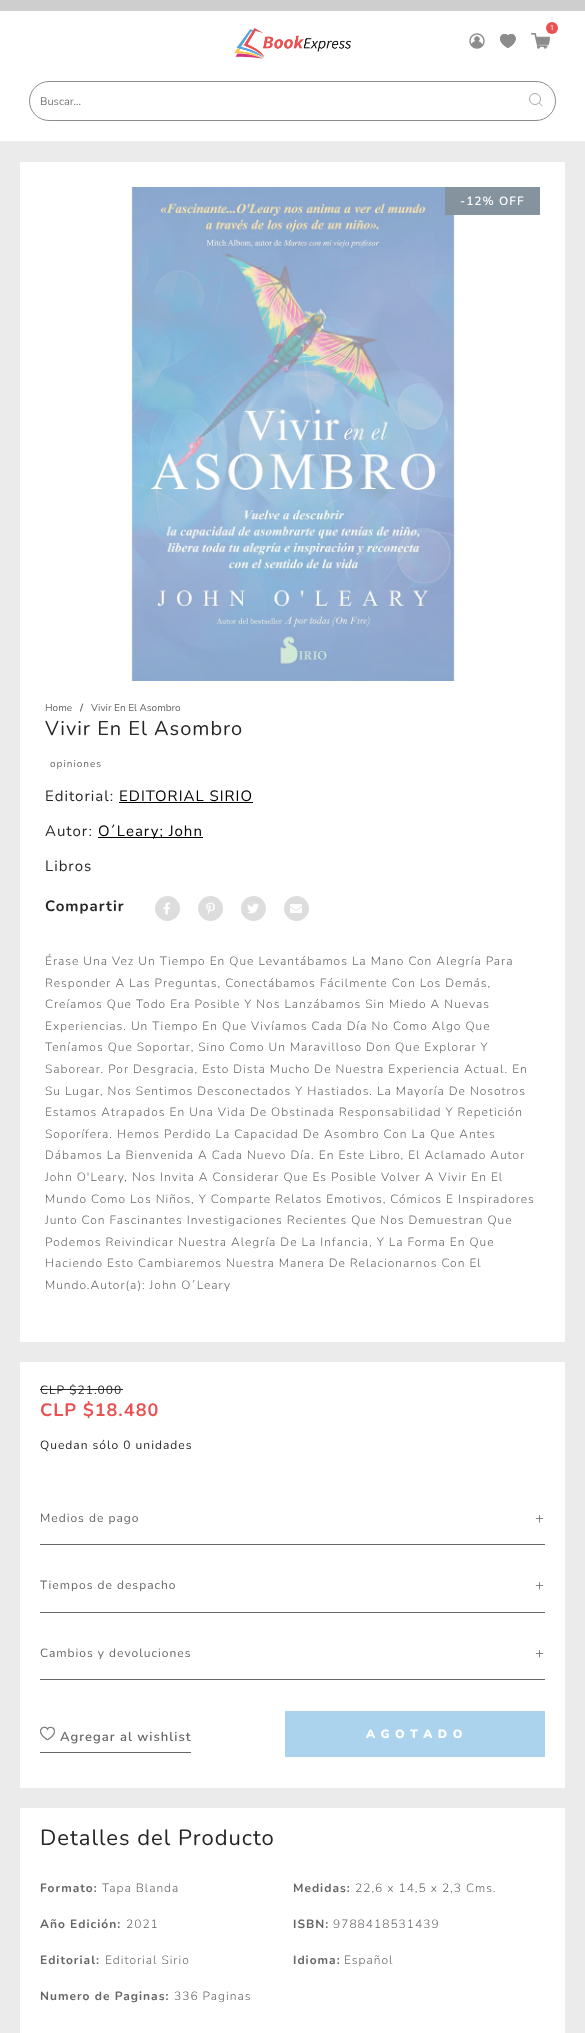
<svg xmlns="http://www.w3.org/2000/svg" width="585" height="2033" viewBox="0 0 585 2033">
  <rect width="100%" height="100%" fill="#fff"/>
  <path d="M0 0h585v11H0z" fill="#cecece"/>
  <image x="531" y="33" width="19" height="16" href="img/1.png"/>
  <circle cx="552" cy="28" r="6" fill="#e95153"/>
  <image x="469" y="33" width="16" height="16" href="img/2.png"/>
  <image x="500" y="34" width="16" height="14" href="img/3.png"/>
  <image x="234" y="28" width="117" height="31" href="img/4.png"/>
  <rect x="29.5" y="81.5" width="526" height="39" rx="19.5" fill="none" stroke="#8c8c8c"/>
  <circle cx="535" cy="99" r="5.5" fill="none" stroke="#a0a0a0" stroke-width="0.9"/>
  <path d="M542.5 106L539 103" fill="none" stroke="#a0a0a0" stroke-width="0.9"/>
  <path d="M0 141h585v1892H0z" fill="#ebebeb"/>
  <path d="M20 162h545v1180H20z" fill="#fff"/>
  <image x="131" y="187" width="324" height="494" href="img/5.png"/>
  <path d="M445 187h95v28H445z" fill="#84939e"/>
  <path d="M119 802h134v1H119z" fill="#000"/>
  <path d="M98 837h105v1H98z" fill="#000"/>
  <circle cx="167.5" cy="908.5" r="12.5" fill="#ddd"/>
  <image x="163" y="902" width="7" height="13" href="img/6.png"/>
  <circle cx="210.5" cy="908.5" r="12.5" fill="#ddd"/>
  <image x="206" y="902" width="9" height="12" href="img/7.png"/>
  <circle cx="253.5" cy="908.5" r="12.5" fill="#ddd"/>
  <image x="247" y="903" width="12" height="11" href="img/8.png"/>
  <circle cx="296.5" cy="908.5" r="12.5" fill="#ddd"/>
  <image x="290" y="904" width="12" height="9" href="img/9.png"/>
  <path d="M20 1362h545v426H20z" fill="#fff"/>
  <path d="M40 1389h83v1H40z" fill="#262626"/>
  <path d="M40 1544h505v1H40z" fill="#666"/>
  <path d="M40 1612h505v1H40z" fill="#666"/>
  <path d="M40 1679h505v1H40z" fill="#666"/>
  <path d="M40 1752h151v1H40z" fill="#666"/>
  <image x="40" y="1726" width="15" height="15" href="img/10.png"/>
  <path d="M285 1711h260v46H285z" fill="#abd3ee"/>
  <path d="M20 1808h545v225H20z" fill="#fff"/>
  <text x="550" y="30" font-family="Roboto" font-size="7" fill="#fff">1</text>
  <text x="40" y="105" font-family="Nunito" font-size="11" font-weight="200" fill="#757575">Buscar...</text>
  <text x="460" y="205" font-family="Nunito" font-size="12" font-weight="600" letter-spacing="1" fill="#fff">-12% OFF</text>
  <text x="45" y="711" font-family="Nunito" font-size="10" font-weight="200" fill="#666">Home</text>
  <text x="80" y="711" font-family="Nunito" font-size="10" font-weight="bold" fill="#666">/</text>
  <text x="91" y="711" font-family="Nunito" font-size="10" font-weight="200" fill="#666">Vivir En El Asombro</text>
  <text x="45" y="735" font-family="Nunito" font-size="20" font-weight="200" letter-spacing="1" fill="#262626">Vivir En El Asombro</text>
  <text x="50" y="767" font-family="Nunito" font-size="10" font-weight="200" letter-spacing="1" fill="#666">opiniones</text>
  <text x="45" y="801" font-family="Nunito" font-size="15" font-weight="200" letter-spacing="1" fill="#262626">Editorial:</text>
  <text x="119" y="801" font-family="Nunito" font-size="15" font-weight="200" letter-spacing="1" fill="#000">EDITORIAL SIRIO</text>
  <text x="45" y="836" font-family="Nunito" font-size="15" font-weight="200" letter-spacing="1" fill="#262626">Autor:</text>
  <text x="98" y="836" font-family="Nunito" font-size="15" font-weight="200" letter-spacing="1" fill="#000">O´Leary; John</text>
  <text x="45" y="871" font-family="Nunito" font-size="15" font-weight="200" letter-spacing="1" fill="#262626">Libros</text>
  <text x="45" y="911" font-family="Nunito" font-size="15" font-weight="bold" letter-spacing="1" fill="#262626">Compartir</text>
  <g font-family="Nunito" font-size="12" font-weight="300" letter-spacing="1" fill="#666">
    <text x="45" y="965">Érase Una Vez Un Tiempo En Que Levantábamos La Mano Con Alegría Para</text>
    <text x="45" y="987">Responder A Las Preguntas, Conectábamos Fácilmente Con Los Demás,</text>
    <text x="45" y="1008">Creíamos Que Todo Era Posible Y Nos Lanzábamos Sin Miedo A Nuevas</text>
    <text x="45" y="1030">Experiencias. Un Tiempo En Que Vivíamos Cada Día No Como Algo Que</text>
    <text x="45" y="1051">Teníamos Que Soportar, Sino Como Un Maravilloso Don Que Explorar Y</text>
    <text x="45" y="1073">Saborear. Por Desgracia, Esto Dista Mucho De Nuestra Experiencia Actual. En</text>
    <text x="45" y="1095">Su Lugar, Nos Sentimos Desconectados Y Hastiados. La Mayoría De Nosotros</text>
    <text x="45" y="1116">Estamos Atrapados En Una Vida De Obstinada Responsabilidad Y Repetición</text>
    <text x="45" y="1138">Soporífera. Hemos Perdido La Capacidad De Asombro Con La Que Antes</text>
    <text x="45" y="1159">Dábamos La Bienvenida A Cada Nuevo Día. En Este Libro, El Aclamado Autor</text>
    <text x="45" y="1181">John O'Leary, Nos Invita A Considerar Que Es Posible Volver A Vivir En El</text>
    <text x="45" y="1203">Mundo Como Los Niños, Y Comparte Relatos Emotivos, Cómicos E Inspiradores</text>
    <text x="45" y="1224">Junto Con Fascinantes Investigaciones Recientes Que Nos Demuestran Que</text>
    <text x="45" y="1246">Podemos Reivindicar Nuestra Alegría De La Infancia, Y La Forma En Que</text>
    <text x="45" y="1267">Haciendo Esto Cambiaremos Nuestra Manera De Relacionarnos Con El</text>
    <text x="45" y="1289">Mundo.Autor(a): John O´Leary</text>
  </g>
  <text x="40" y="1394" font-family="Nunito" font-size="12" font-weight="200" letter-spacing="1" fill="#262626">CLP $21.000</text>
  <text x="40" y="1416" font-family="Nunito" font-size="18" font-weight="bold" letter-spacing="1" fill="#e95153">CLP $18.480</text>
  <text x="40" y="1449" font-family="Nunito" font-size="12" font-weight="200" letter-spacing="1" fill="#262626">Quedan sólo 0 unidades</text>
  <text x="40" y="1522" font-family="Nunito" font-size="12" font-weight="200" letter-spacing="1" fill="#666">Medios de pago</text>
  <text x="535" y="1523" font-family="Nunito" font-size="15" font-weight="300" letter-spacing="1" fill="#666">+</text>
  <text x="40" y="1589" font-family="Nunito" font-size="12" font-weight="200" letter-spacing="1" fill="#666">Tiempos de despacho</text>
  <text x="535" y="1590" font-family="Nunito" font-size="15" font-weight="300" letter-spacing="1" fill="#666">+</text>
  <text x="40" y="1657" font-family="Nunito" font-size="12" font-weight="200" letter-spacing="1" fill="#666">Cambios y devoluciones</text>
  <text x="535" y="1658" font-family="Nunito" font-size="15" font-weight="300" letter-spacing="1" fill="#666">+</text>
  <text x="60" y="1741" font-family="Nunito" font-size="13" font-weight="600" letter-spacing="1" fill="#666">Agregar al wishlist</text>
  <text x="366" y="1738" font-family="Nunito" font-size="12" font-weight="900" letter-spacing="1" fill="#fff">A G O T A D O</text>
  <text x="40" y="1845" font-family="Nunito" font-size="22" font-weight="200" letter-spacing="1" fill="#262626">Detalles del Producto</text>
  <text x="40" y="1892" font-family="Nunito" font-size="12" font-weight="bold" letter-spacing="1" fill="#666">Formato:</text>
  <text x="102" y="1892" font-family="Nunito" font-size="12" font-weight="300" letter-spacing="1" fill="#666">Tapa Blanda</text>
  <text x="293" y="1892" font-family="Nunito" font-size="12" font-weight="bold" letter-spacing="1" fill="#666">Medidas:</text>
  <text x="355" y="1892" font-family="Nunito" font-size="12" font-weight="300" letter-spacing="1" fill="#666">22,6 x 14,5 x 2,3 Cms.</text>
  <text x="40" y="1928" font-family="Nunito" font-size="12" font-weight="bold" letter-spacing="1" fill="#666">Año Edición:</text>
  <text x="126" y="1928" font-family="Nunito" font-size="12" font-weight="300" letter-spacing="1" fill="#666">2021</text>
  <text x="293" y="1928" font-family="Nunito" font-size="12" font-weight="bold" letter-spacing="1" fill="#666">ISBN:</text>
  <text x="333" y="1928" font-family="Nunito" font-size="12" font-weight="300" letter-spacing="1" fill="#666">9788418531439</text>
  <text x="40" y="1964" font-family="Nunito" font-size="12" font-weight="bold" letter-spacing="1" fill="#666">Editorial:</text>
  <text x="105" y="1964" font-family="Nunito" font-size="12" font-weight="300" letter-spacing="1" fill="#666">Editorial Sirio</text>
  <text x="293" y="1964" font-family="Nunito" font-size="12" font-weight="bold" letter-spacing="1" fill="#666">Idioma:</text>
  <text x="344" y="1964" font-family="Nunito" font-size="12" font-weight="300" letter-spacing="1" fill="#666">Español</text>
  <text x="40" y="2000" font-family="Nunito" font-size="12" font-weight="bold" letter-spacing="1" fill="#666">Numero de Paginas:</text>
  <text x="174" y="2000" font-family="Nunito" font-size="12" font-weight="300" letter-spacing="1" fill="#666">336 Paginas</text>
</svg>
